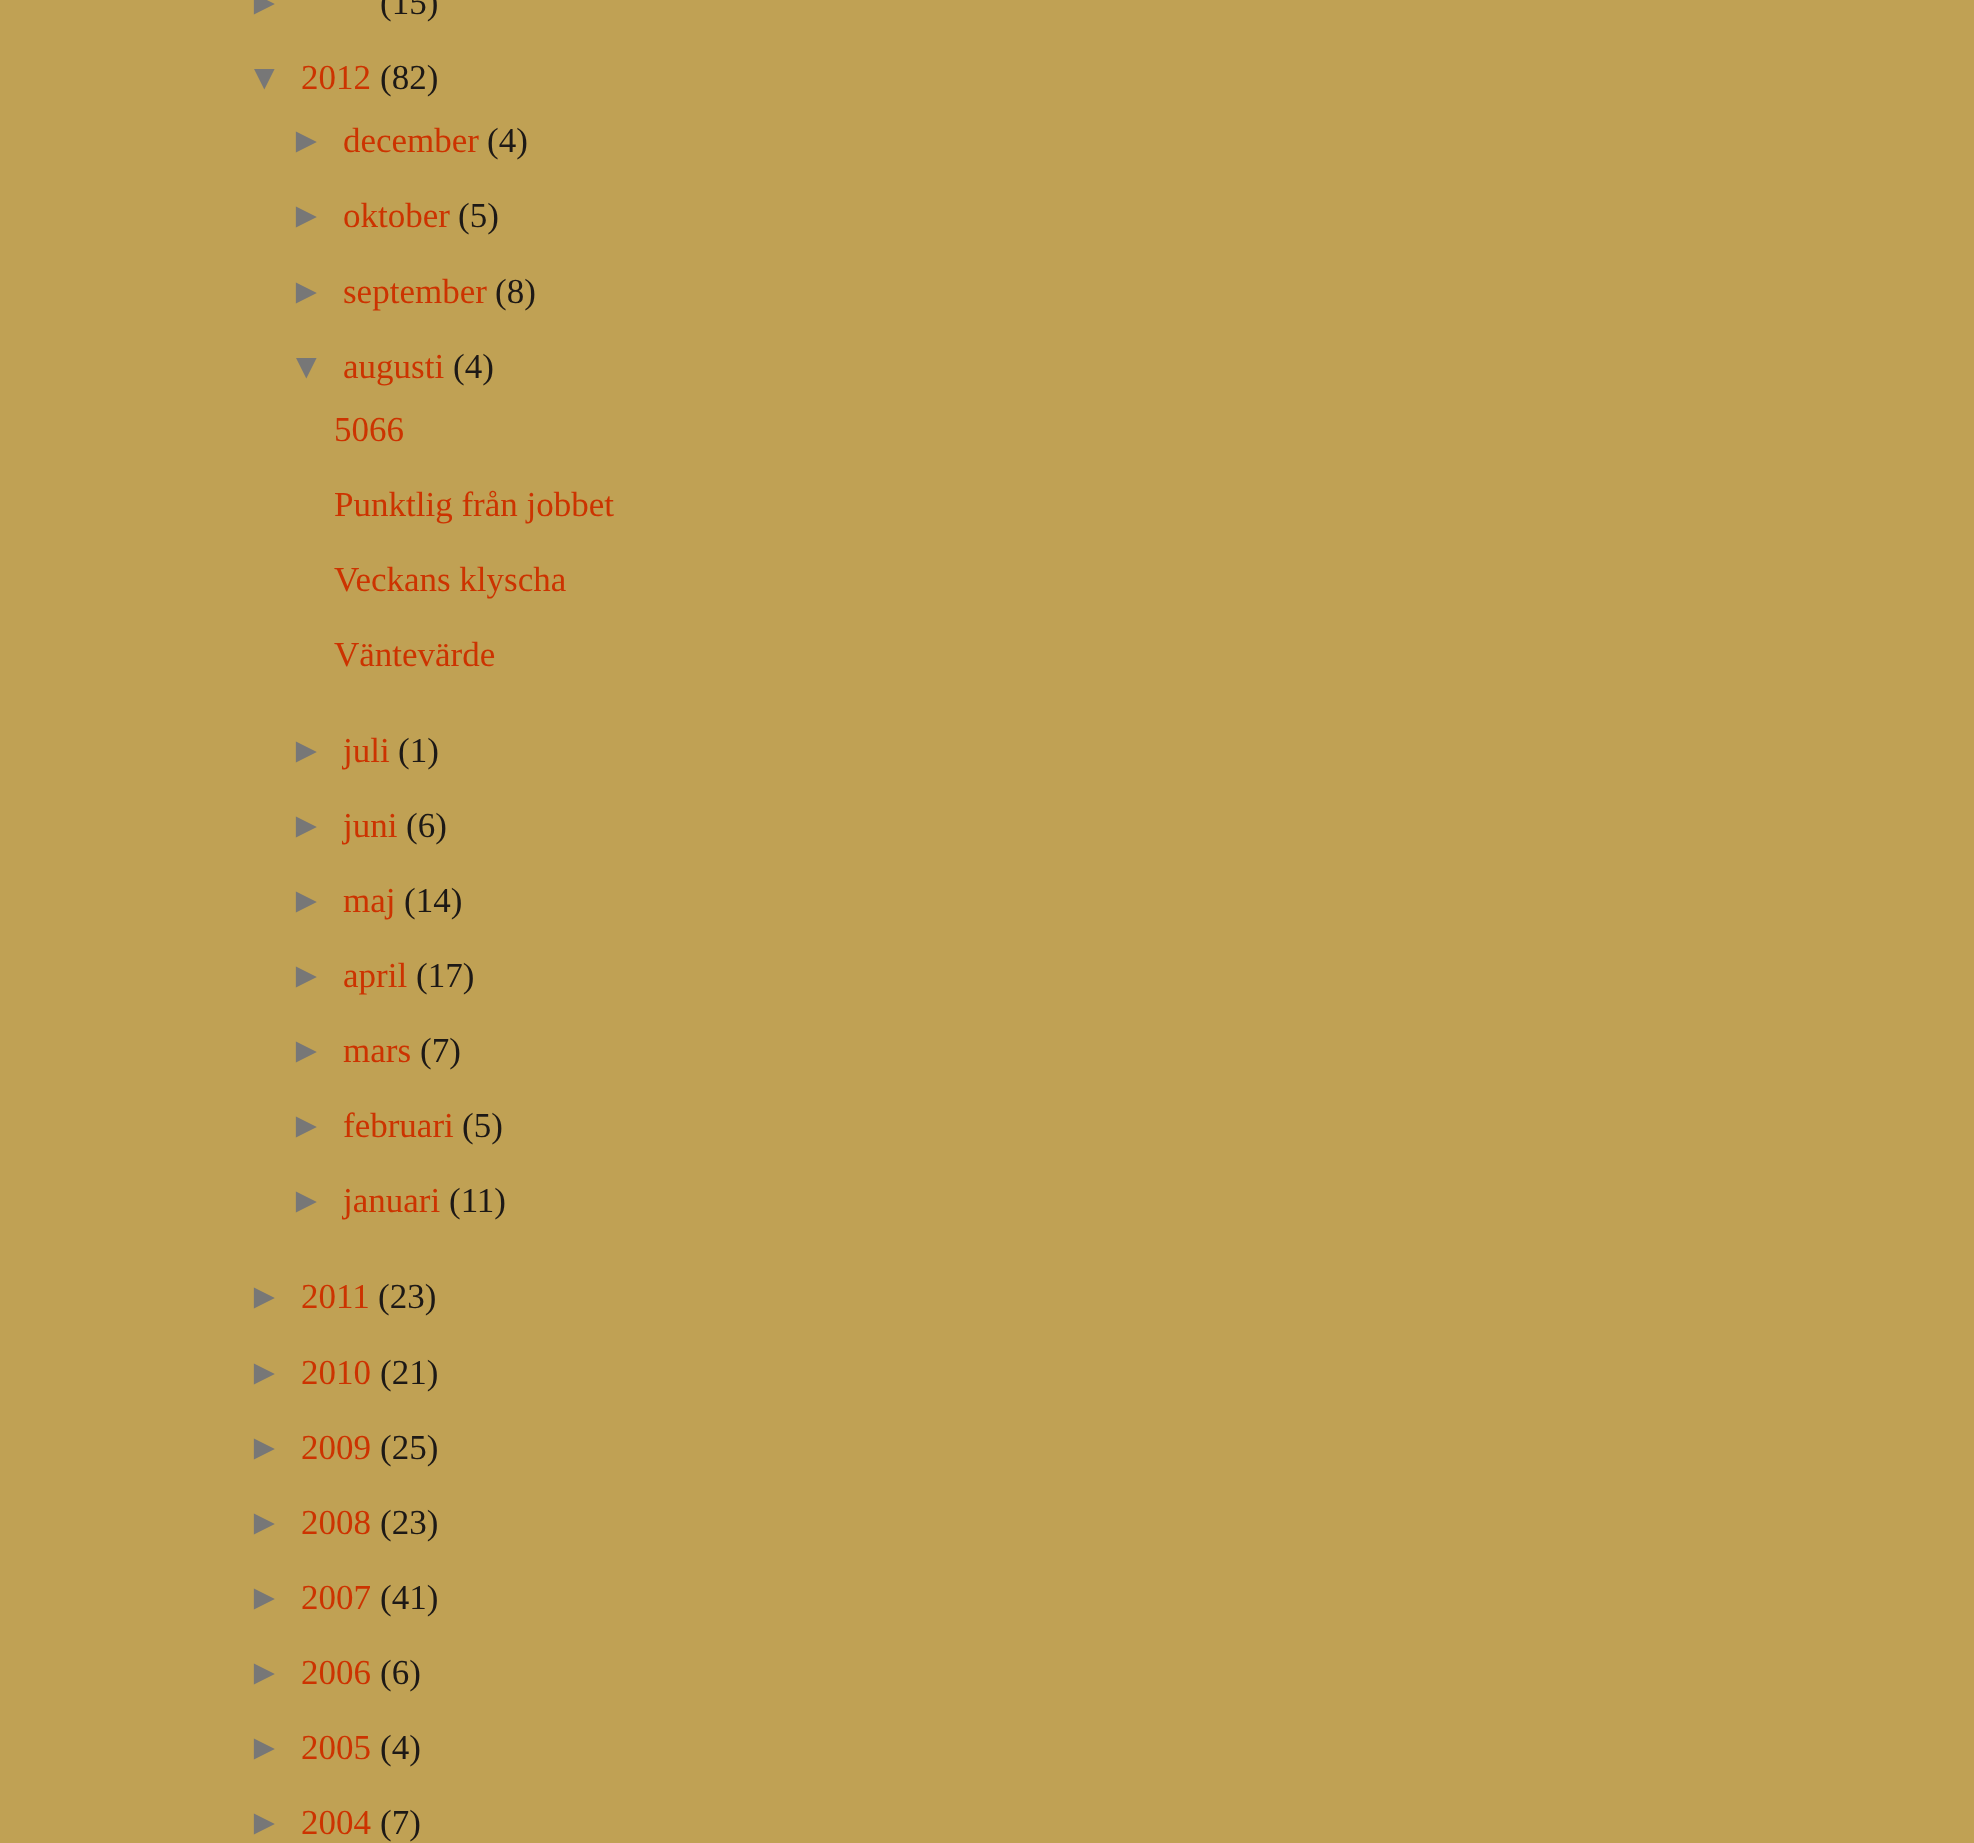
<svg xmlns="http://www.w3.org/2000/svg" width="1974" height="1843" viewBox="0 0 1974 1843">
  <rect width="100%" height="100%" fill="#c0a154"/>
  <text x="247" y="14" font-family="Liberation Sans" font-size="35" fill="#777">►</text>
  <text x="380" y="14" font-family="Liberation Serif" font-size="35" fill="#1d1916">(15)</text>
  <text x="247" y="89" font-family="Liberation Sans" font-size="35" fill="#777">▼</text>
  <text x="301" y="89" font-family="Liberation Serif" font-size="35" fill="#c30">2012</text>
  <text x="380" y="89" font-family="Liberation Serif" font-size="35" fill="#1d1916">(82)</text>
  <text x="289" y="152" font-family="Liberation Sans" font-size="35" fill="#777">►</text>
  <text x="343" y="152" font-family="Liberation Serif" font-size="35" fill="#c30">december</text>
  <text x="487" y="152" font-family="Liberation Serif" font-size="35" fill="#1d1916">(4)</text>
  <text x="289" y="227" font-family="Liberation Sans" font-size="35" fill="#777">►</text>
  <text x="343" y="227" font-family="Liberation Serif" font-size="35" fill="#c30">oktober</text>
  <text x="458" y="227" font-family="Liberation Serif" font-size="35" fill="#1d1916">(5)</text>
  <text x="289" y="303" font-family="Liberation Sans" font-size="35" fill="#777">►</text>
  <text x="343" y="303" font-family="Liberation Serif" font-size="35" fill="#c30">september</text>
  <text x="495" y="303" font-family="Liberation Serif" font-size="35" fill="#1d1916">(8)</text>
  <text x="289" y="378" font-family="Liberation Sans" font-size="35" fill="#777">▼</text>
  <text x="343" y="378" font-family="Liberation Serif" font-size="35" fill="#c30">augusti</text>
  <text x="453" y="378" font-family="Liberation Serif" font-size="35" fill="#1d1916">(4)</text>
  <g font-family="Liberation Serif" font-size="35" fill="#c30">
    <text x="334" y="441">5066</text>
    <text x="334" y="516">Punktlig från jobbet</text>
    <text x="334" y="591">Veckans klyscha</text>
    <text x="334" y="666">Väntevärde</text>
  </g>
  <text x="289" y="762" font-family="Liberation Sans" font-size="35" fill="#777">►</text>
  <text x="343" y="762" font-family="Liberation Serif" font-size="35" fill="#c30">juli</text>
  <text x="398" y="762" font-family="Liberation Serif" font-size="35" fill="#1d1916">(1)</text>
  <text x="289" y="837" font-family="Liberation Sans" font-size="35" fill="#777">►</text>
  <text x="343" y="837" font-family="Liberation Serif" font-size="35" fill="#c30">juni</text>
  <text x="406" y="837" font-family="Liberation Serif" font-size="35" fill="#1d1916">(6)</text>
  <text x="289" y="912" font-family="Liberation Sans" font-size="35" fill="#777">►</text>
  <text x="343" y="912" font-family="Liberation Serif" font-size="35" fill="#c30">maj</text>
  <text x="404" y="912" font-family="Liberation Serif" font-size="35" fill="#1d1916">(14)</text>
  <text x="289" y="987" font-family="Liberation Sans" font-size="35" fill="#777">►</text>
  <text x="343" y="987" font-family="Liberation Serif" font-size="35" fill="#c30">april</text>
  <text x="416" y="987" font-family="Liberation Serif" font-size="35" fill="#1d1916">(17)</text>
  <text x="289" y="1062" font-family="Liberation Sans" font-size="35" fill="#777">►</text>
  <text x="343" y="1062" font-family="Liberation Serif" font-size="35" fill="#c30">mars</text>
  <text x="420" y="1062" font-family="Liberation Serif" font-size="35" fill="#1d1916">(7)</text>
  <text x="289" y="1137" font-family="Liberation Sans" font-size="35" fill="#777">►</text>
  <text x="343" y="1137" font-family="Liberation Serif" font-size="35" fill="#c30">februari</text>
  <text x="462" y="1137" font-family="Liberation Serif" font-size="35" fill="#1d1916">(5)</text>
  <text x="289" y="1212" font-family="Liberation Sans" font-size="35" fill="#777">►</text>
  <text x="343" y="1212" font-family="Liberation Serif" font-size="35" fill="#c30">januari</text>
  <text x="449" y="1212" font-family="Liberation Serif" font-size="35" fill="#1d1916">(11)</text>
  <text x="247" y="1308" font-family="Liberation Sans" font-size="35" fill="#777">►</text>
  <text x="301" y="1308" font-family="Liberation Serif" font-size="35" fill="#c30">2011</text>
  <text x="378" y="1308" font-family="Liberation Serif" font-size="35" fill="#1d1916">(23)</text>
  <text x="247" y="1384" font-family="Liberation Sans" font-size="35" fill="#777">►</text>
  <text x="301" y="1384" font-family="Liberation Serif" font-size="35" fill="#c30">2010</text>
  <text x="380" y="1384" font-family="Liberation Serif" font-size="35" fill="#1d1916">(21)</text>
  <text x="247" y="1459" font-family="Liberation Sans" font-size="35" fill="#777">►</text>
  <text x="301" y="1459" font-family="Liberation Serif" font-size="35" fill="#c30">2009</text>
  <text x="380" y="1459" font-family="Liberation Serif" font-size="35" fill="#1d1916">(25)</text>
  <text x="247" y="1534" font-family="Liberation Sans" font-size="35" fill="#777">►</text>
  <text x="301" y="1534" font-family="Liberation Serif" font-size="35" fill="#c30">2008</text>
  <text x="380" y="1534" font-family="Liberation Serif" font-size="35" fill="#1d1916">(23)</text>
  <text x="247" y="1609" font-family="Liberation Sans" font-size="35" fill="#777">►</text>
  <text x="301" y="1609" font-family="Liberation Serif" font-size="35" fill="#c30">2007</text>
  <text x="380" y="1609" font-family="Liberation Serif" font-size="35" fill="#1d1916">(41)</text>
  <text x="247" y="1684" font-family="Liberation Sans" font-size="35" fill="#777">►</text>
  <text x="301" y="1684" font-family="Liberation Serif" font-size="35" fill="#c30">2006</text>
  <text x="380" y="1684" font-family="Liberation Serif" font-size="35" fill="#1d1916">(6)</text>
  <text x="247" y="1759" font-family="Liberation Sans" font-size="35" fill="#777">►</text>
  <text x="301" y="1759" font-family="Liberation Serif" font-size="35" fill="#c30">2005</text>
  <text x="380" y="1759" font-family="Liberation Serif" font-size="35" fill="#1d1916">(4)</text>
  <text x="247" y="1834" font-family="Liberation Sans" font-size="35" fill="#777">►</text>
  <text x="301" y="1834" font-family="Liberation Serif" font-size="35" fill="#c30">2004</text>
  <text x="380" y="1834" font-family="Liberation Serif" font-size="35" fill="#1d1916">(7)</text>
</svg>
